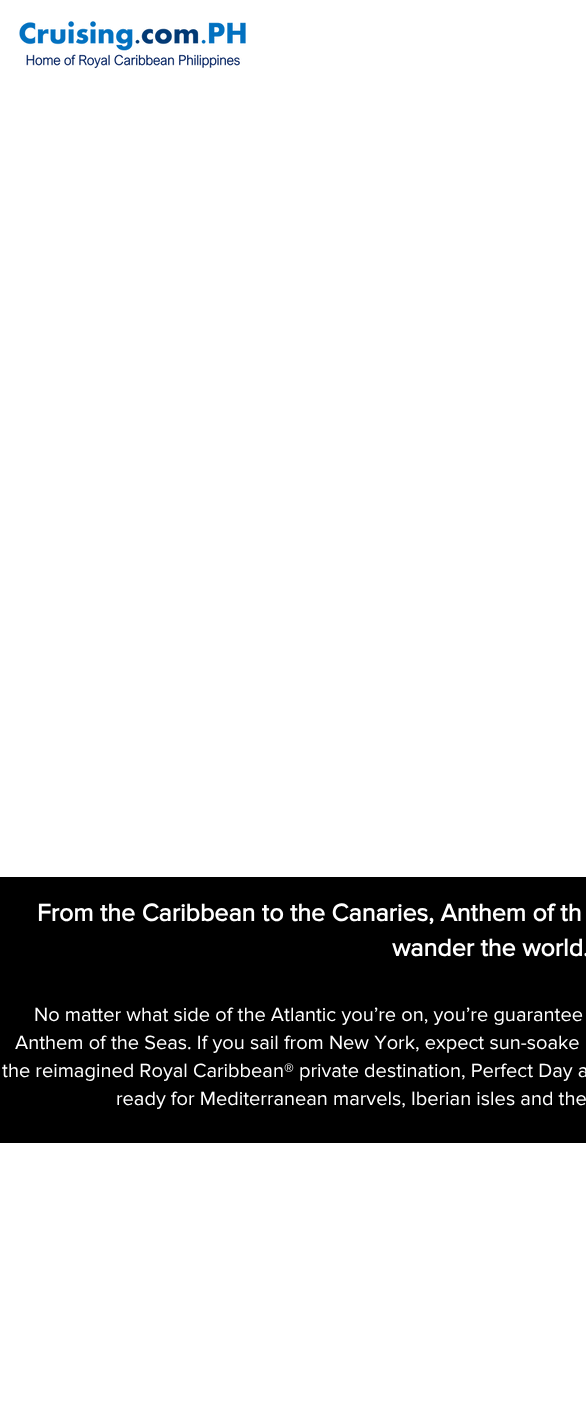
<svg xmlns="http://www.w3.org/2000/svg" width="586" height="1413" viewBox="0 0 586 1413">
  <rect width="100%" height="100%" fill="#fff"/>
  <image x="19" y="21" width="227" height="48" href="img/1.png"/>
  <path d="M0 877h586v266H0z" fill="#000"/>
  <g font-family="'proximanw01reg'" font-size="25" font-weight="bold" fill="#fff">
    <text x="37" y="921">From the Caribbean to the Canaries, Anthem of th</text>
    <text x="392" y="956">wander the world.</text>
  </g>
  <g font-family="'proximanw01reg'" font-size="20" fill="#fff">
    <text x="34" y="1021">No matter what side of the Atlantic you’re on, you’re guarantee</text>
    <text x="15" y="1049">Anthem of the Seas. If you sail from New York, expect sun-soake</text>
    <text x="2" y="1077">the reimagined Royal Caribbean® private destination, Perfect Day a</text>
    <text x="116" y="1105">ready for Mediterranean marvels, Iberian isles and the</text>
  </g>
</svg>
